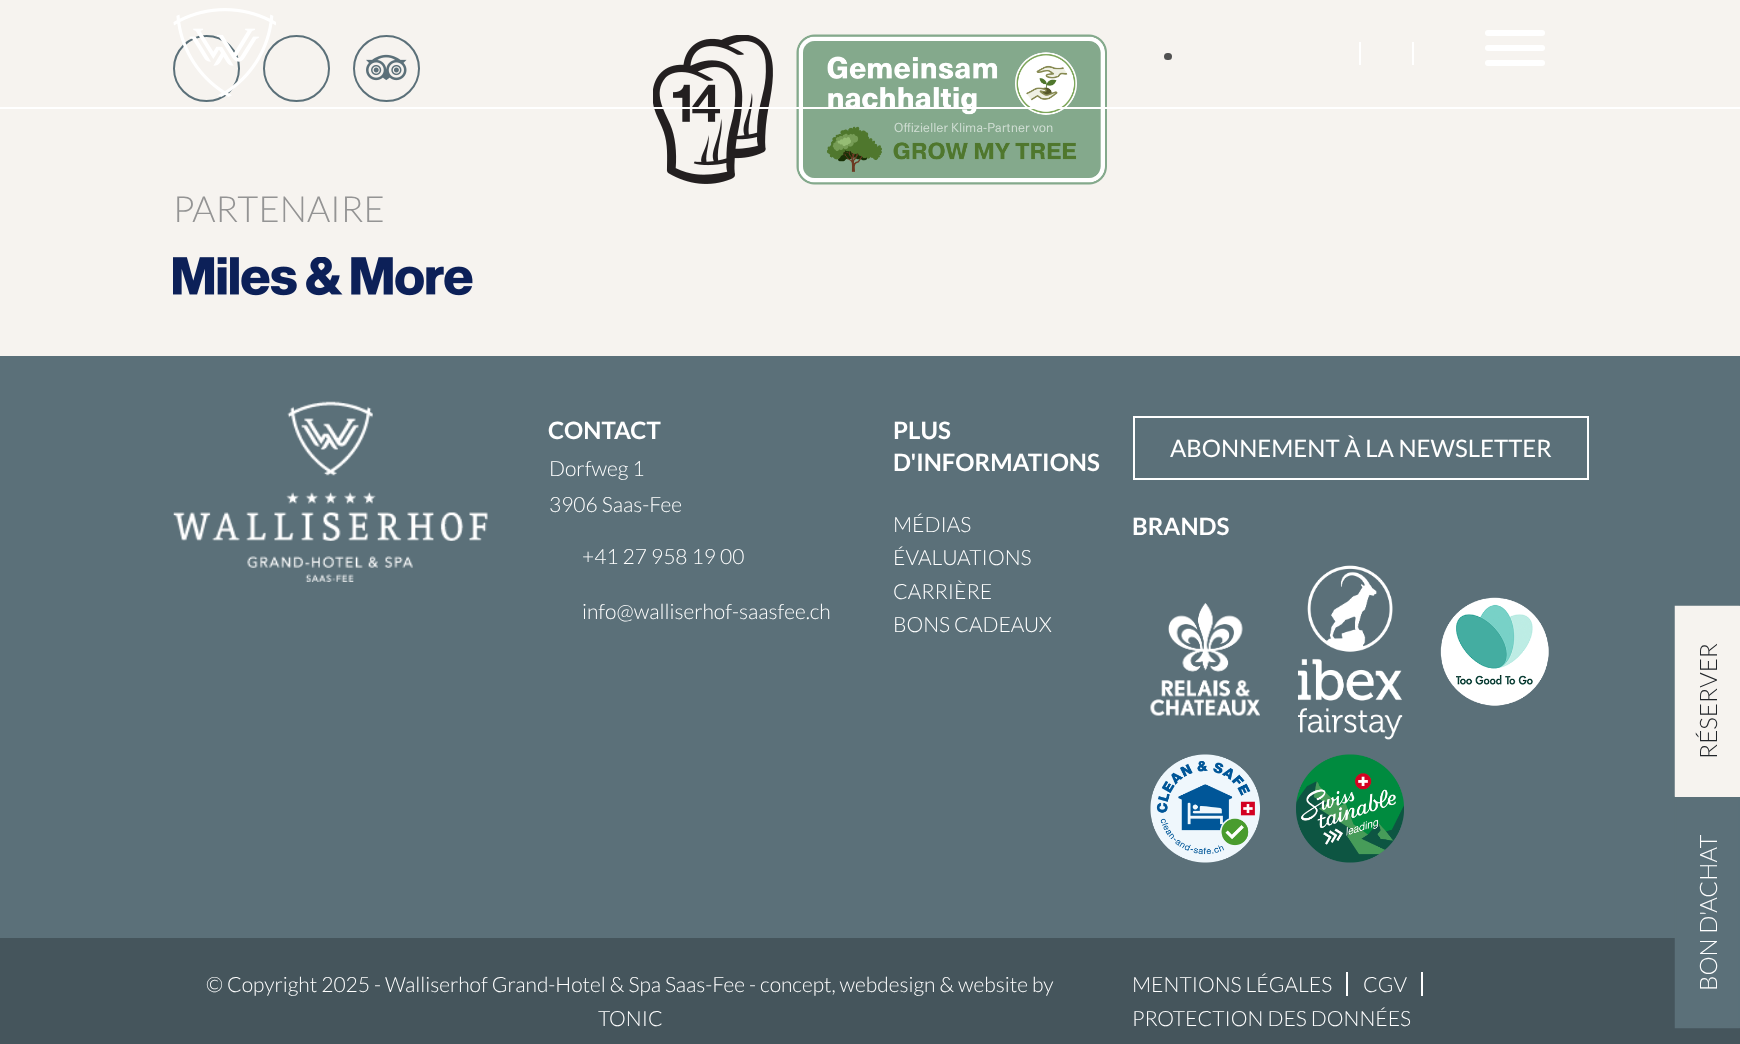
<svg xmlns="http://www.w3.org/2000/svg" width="1740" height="1044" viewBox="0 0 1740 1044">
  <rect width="100%" height="100%" fill="#f6f3ef"/>
  <image x="653" y="35" width="120" height="149" href="img/3.png"/>
  <image x="796" y="34" width="311" height="151" href="img/4.png"/>
  <path d="M0 107h1740v2H0z" fill="#fff"/>
  <circle cx="206.5" cy="68.5" r="32.5" fill="none" stroke="#5b7079" stroke-width="2"/>
  <circle cx="296.5" cy="68.5" r="32.5" fill="none" stroke="#5b7079" stroke-width="2"/>
  <image x="173" y="8" width="103" height="89" href="img/1.png"/>
  <path d="M1359 42h2v23H1359z" fill="#fff"/>
  <path d="M1412 42h2v23H1412z" fill="#fff"/>
  <rect x="1485" y="45" width="60" height="6" rx="3" fill="#fff"/>
  <rect x="1485" y="30" width="60" height="6" rx="3" fill="#fff"/>
  <rect x="1485" y="60" width="60" height="6" rx="3" fill="#fff"/>
  <circle cx="386.5" cy="68.5" r="32.5" fill="none" stroke="#5b7079" stroke-width="2"/>
  <image x="366" y="54" width="41" height="27" href="img/2.png"/>
  <rect x="1164" y="53" width="8" height="7" rx="3.5" fill="#515151"/>
  <image x="173" y="257" width="300" height="39" href="img/5.png"/>
  <path d="M0 356h1740v582H0z" fill="#5b7079"/>
  <image x="173" y="401" width="315" height="181" href="img/6.png"/>
  <path d="M1134 417h454v62H1134z" fill="none" stroke="#fff" stroke-width="2"/>
  <image x="1150" y="603" width="110" height="113" href="img/7.png"/>
  <image x="1298" y="565" width="105" height="175" href="img/8.png"/>
  <image x="1440" y="597" width="109" height="109" href="img/9.png"/>
  <image x="1150" y="754" width="110" height="109" href="img/10.png"/>
  <image x="1296" y="754" width="108" height="109" href="img/11.png"/>
  <path d="M0 938h1740v106H0z" fill="#45555c"/>
  <path d="M1676 938h64v90H1676z" fill="#5b7079"/>
  <path d="M1675.5 1027.5V797.5H1739V1027.5Z" fill="none" stroke="#5b7079" stroke-width="1.5"/>
  <path d="M1675 606h65v191H1675z" fill="#f6f3ef"/>
  <path d="M1675.5 796V606.5H1739V796Z" fill="none" stroke="#f6f3ef" stroke-width="1.5"/>
  <path d="M1346 972h2v24H1346z" fill="#fff"/>
  <path d="M1421 972h2v24H1421z" fill="#fff"/>
  <text x="173" y="222" font-family="Lato" font-size="36" font-weight="300" fill="#949494">PARTENAIRE</text>
  <text x="548" y="439" font-family="Lato" font-size="24" font-weight="bold" fill="#fff">CONTACT</text>
  <g font-family="Lato" font-size="21" font-weight="300" fill="#fff">
    <text x="549" y="476">Dorfweg 1</text>
    <text x="549" y="512">3906 Saas-Fee</text>
    <text x="582" y="564">+41 27 958 19 00</text>
    <text x="582" y="619">info@walliserhof-saasfee.ch</text>
  </g>
  <g font-family="Lato" font-size="24" font-weight="bold" fill="#fff">
    <text x="893" y="439">PLUS</text>
    <text x="893" y="471">D'INFORMATIONS</text>
  </g>
  <g font-family="Lato" font-size="21" font-weight="300" fill="#fff">
    <text x="893" y="532">MÉDIAS</text>
    <text x="893" y="565">ÉVALUATIONS</text>
    <text x="893" y="599">CARRIÈRE</text>
    <text x="893" y="632">BONS CADEAUX</text>
  </g>
  <text x="1170" y="457" font-family="Lato" font-size="24" fill="#fff">ABONNEMENT À LA NEWSLETTER</text>
  <text x="1132" y="535" font-family="Lato" font-size="24" font-weight="bold" fill="#fff">BRANDS</text>
  <text x="1717" y="759" transform="rotate(-90 1717 759)" font-family="Lato" font-size="24" font-weight="300" fill="#212529">RÉSERVER</text>
  <text x="1717" y="991" transform="rotate(-90 1717 991)" font-family="Lato" font-size="24" font-weight="300" fill="#fff">BON D'ACHAT</text>
  <g font-family="Lato" font-size="21" font-weight="300" fill="#fff">
    <text x="206" y="992">© Copyright 2025 - Walliserhof Grand-Hotel &amp; Spa Saas-Fee - concept, webdesign &amp; website by</text>
    <text x="598" y="1026">TONIC</text>
    <text x="1132" y="992">MENTIONS LÉGALES</text>
    <text x="1363" y="992">CGV</text>
    <text x="1132" y="1026">PROTECTION DES DONNÉES</text>
  </g>
</svg>
